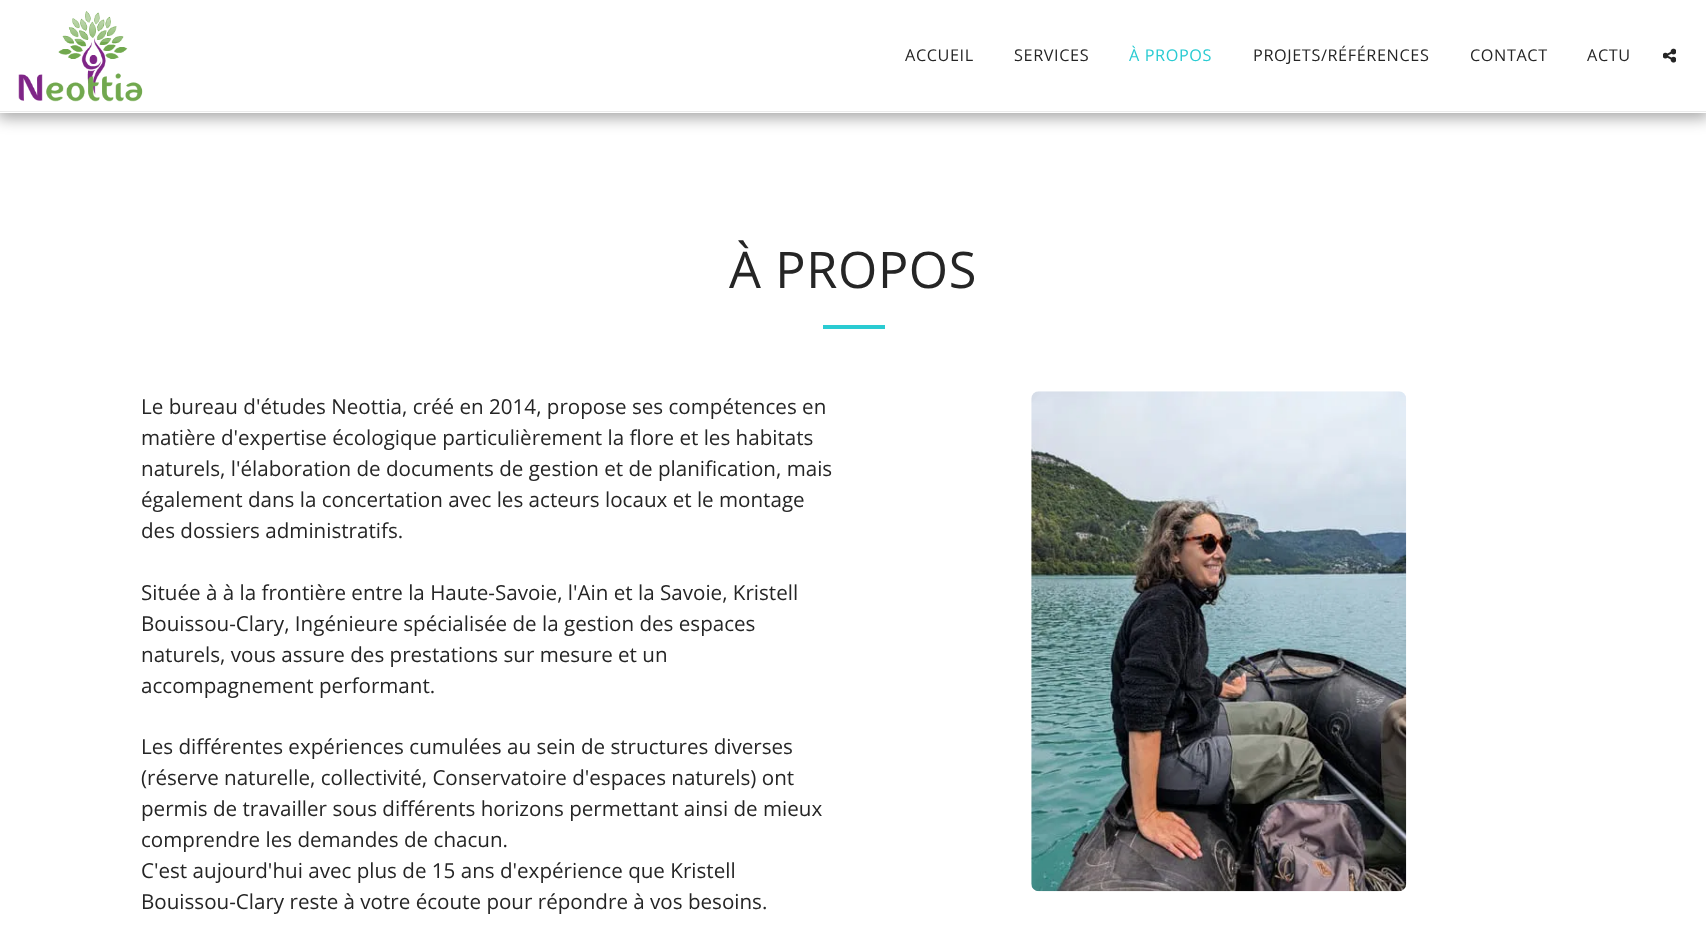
<svg xmlns="http://www.w3.org/2000/svg" width="1706" height="946" viewBox="0 0 1706 946">
  <rect width="100%" height="100%" fill="#fff"/>
  <path d="M-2 0h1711v118H-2z" fill="#00000059" filter="blur(7.5px)"/>
  <path d="M0 0h1706v113H0z" fill="#fff"/>
  <path d="M0 111h1706v1H0z" fill="#ebebeb"/>
  <image x="18" y="11" width="125" height="91" href="img/1.png"/>
  <image x="1663" y="48" width="13" height="15" href="img/2.png"/>
  <path d="M823 325h62v4H823z" fill="#2acbd2"/>
  <image x="1031" y="391" width="376" height="501" href="img/3.png"/>
  <g font-family="Open Sans" font-size="16.25" letter-spacing="0.6" fill="#252525">
    <text x="905" y="61">ACCUEIL</text>
    <text x="1014" y="61">SERVICES</text>
  </g>
  <text x="1129" y="61" font-family="Open Sans" font-size="16.25" letter-spacing="0.6" fill="#2acbd2">À PROPOS</text>
  <g font-family="Open Sans" font-size="16.25" letter-spacing="0.6" fill="#252525">
    <text x="1253" y="61">PROJETS/RÉFÉRENCES</text>
    <text x="1470" y="61">CONTACT</text>
    <text x="1587" y="61">ACTU</text>
  </g>
  <text x="729" y="288" font-family="Open Sans" font-size="50.5" letter-spacing="0.6" fill="#252525">À PROPOS</text>
  <g font-family="Open Sans" font-size="20.6" fill="#252525">
    <text x="141" y="414">Le bureau d'études Neottia, créé en 2014, propose ses compétences en</text>
    <text x="141" y="445">matière d'expertise écologique particulièrement la flore et les habitats</text>
    <text x="141" y="476">naturels, l'élaboration de documents de gestion et de planification, mais</text>
    <text x="141" y="507">également dans la concertation avec les acteurs locaux et le montage</text>
    <text x="141" y="538">des dossiers administratifs.</text>
    <text x="141" y="600">Située à à la frontière entre la Haute-Savoie, l'Ain et la Savoie, Kristell</text>
    <text x="141" y="631">Bouissou-Clary, Ingénieure spécialisée de la gestion des espaces</text>
    <text x="141" y="662">naturels, vous assure des prestations sur mesure et un</text>
    <text x="141" y="693">accompagnement performant.</text>
    <text x="141" y="754">Les différentes expériences cumulées au sein de structures diverses</text>
    <text x="141" y="785">(réserve naturelle, collectivité, Conservatoire d'espaces naturels) ont</text>
    <text x="141" y="816">permis de travailler sous différents horizons permettant ainsi de mieux</text>
    <text x="141" y="847">comprendre les demandes de chacun.</text>
    <text x="141" y="878">C'est aujourd'hui avec plus de 15 ans d'expérience que Kristell</text>
    <text x="141" y="909">Bouissou-Clary reste à votre écoute pour répondre à vos besoins.</text>
  </g>
</svg>
